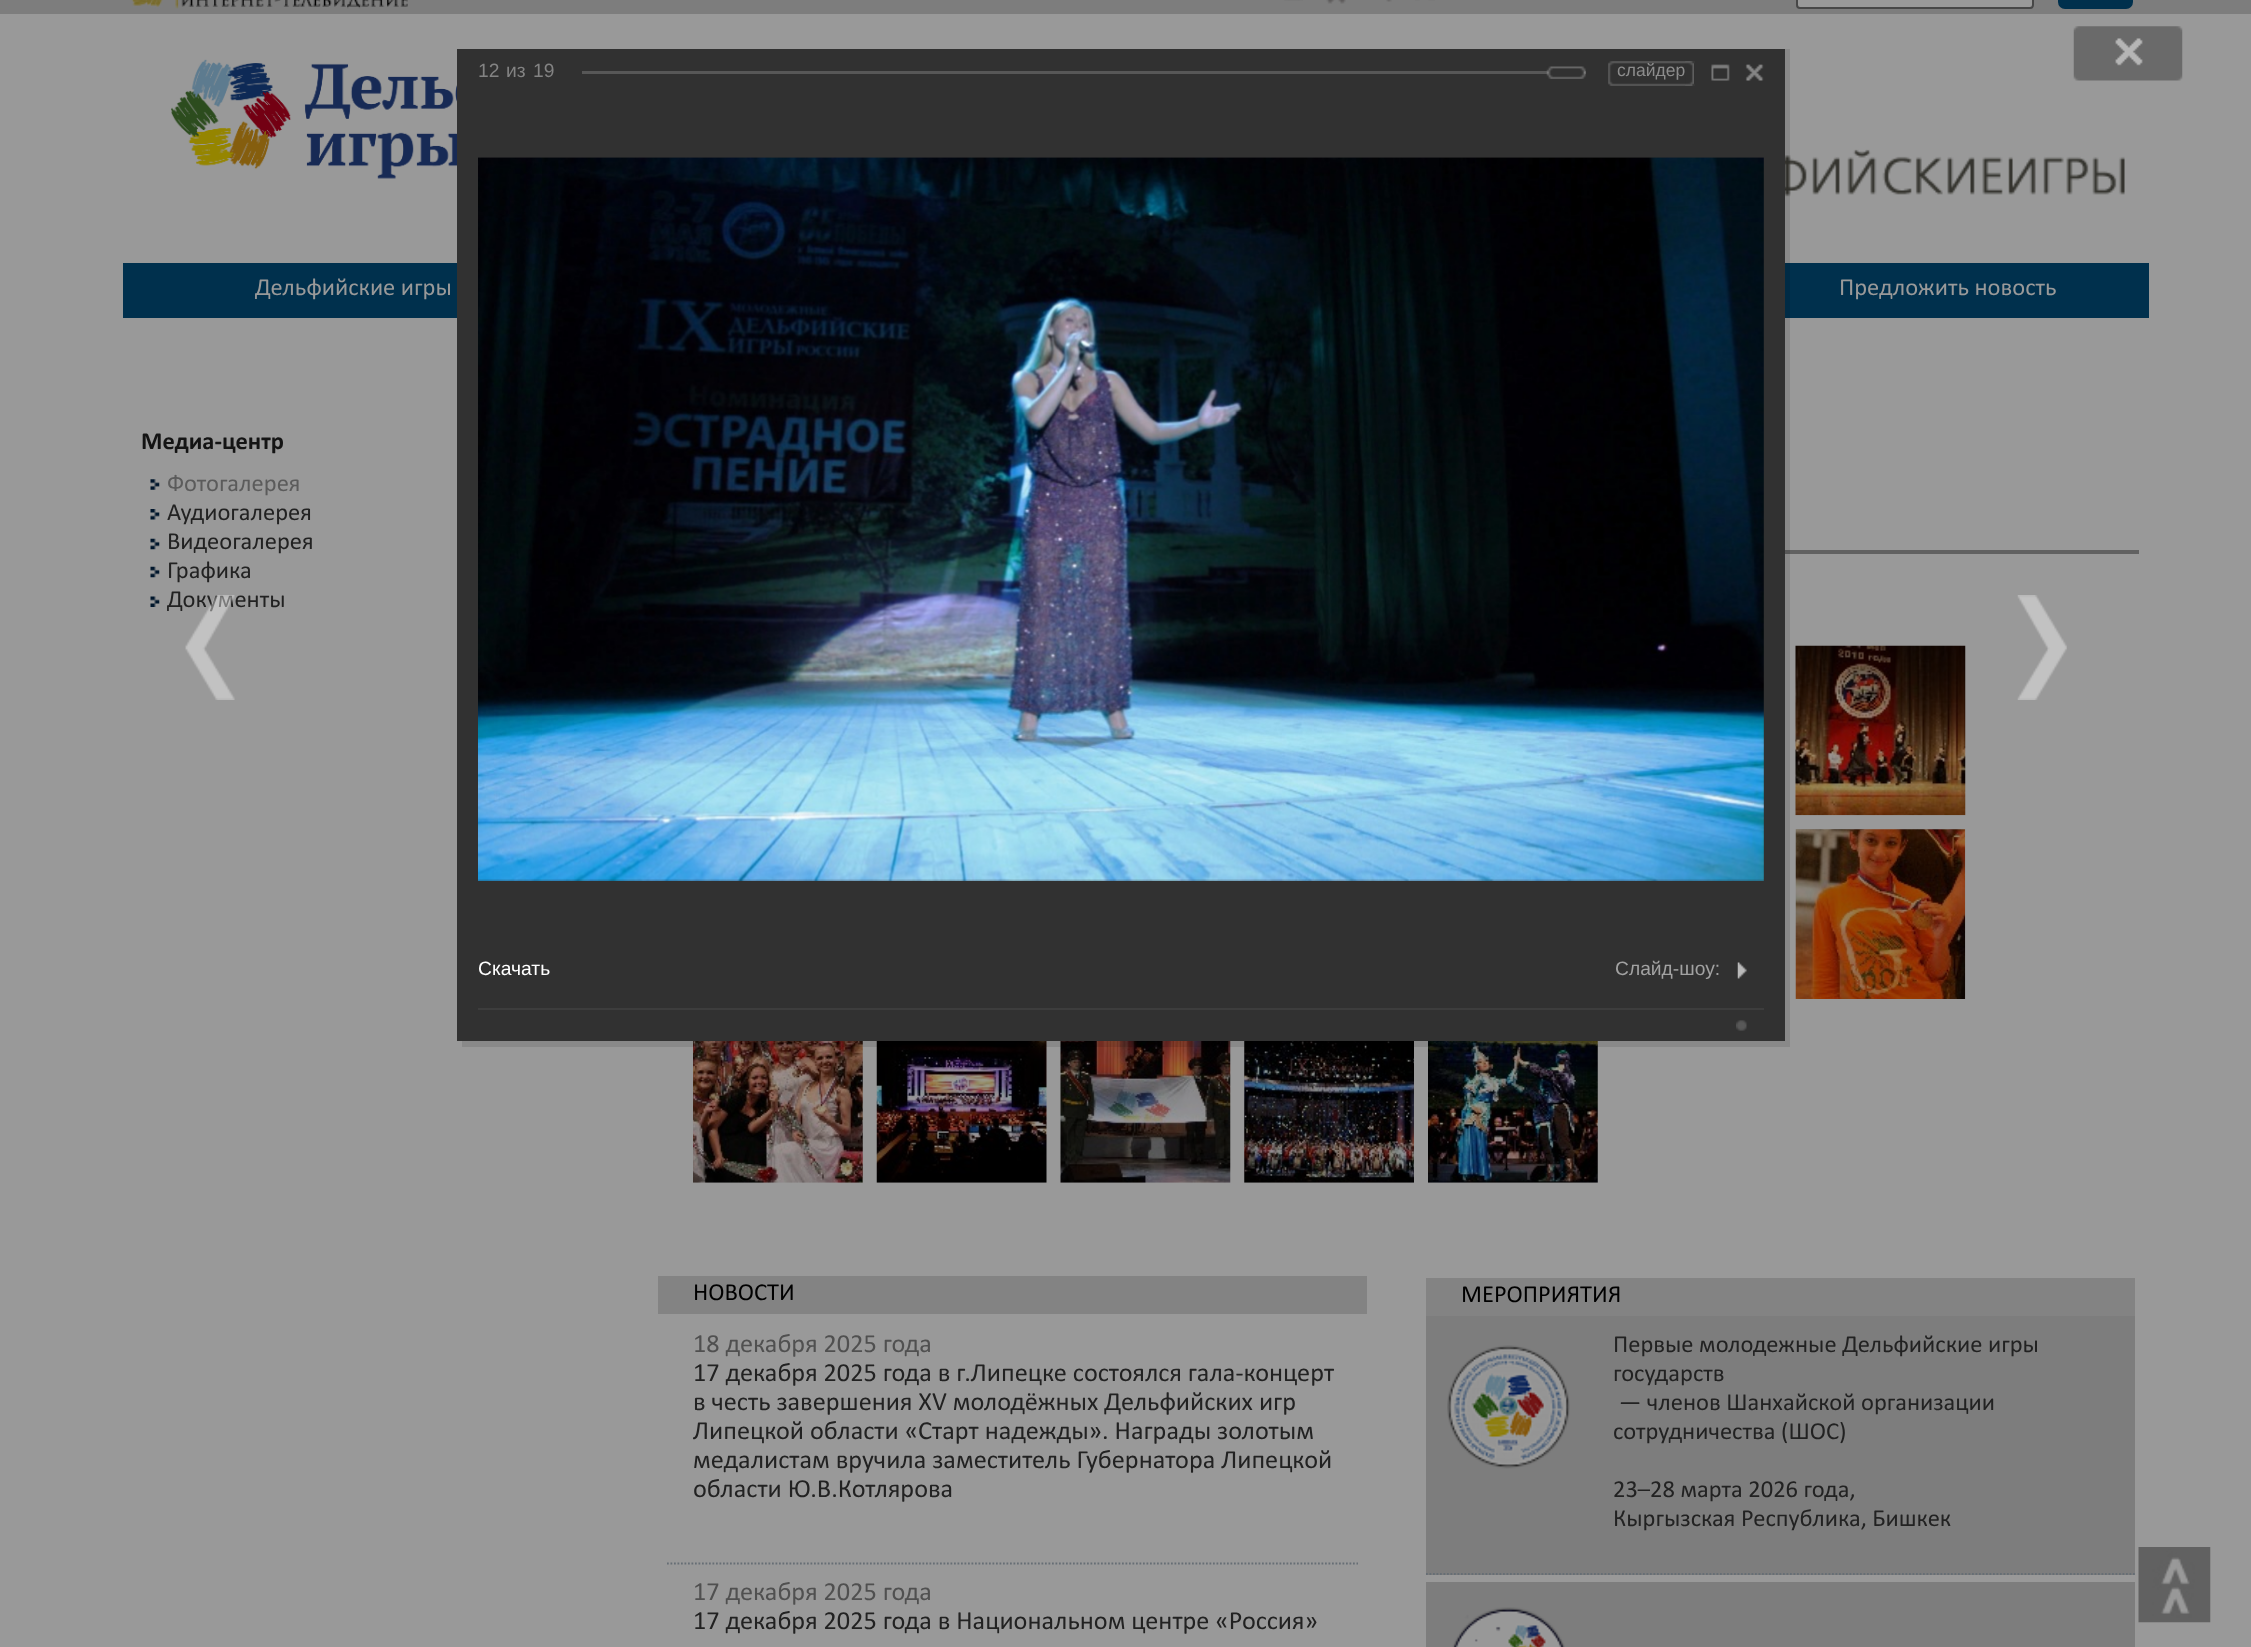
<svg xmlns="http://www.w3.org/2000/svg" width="2251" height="1647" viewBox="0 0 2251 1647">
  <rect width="100%" height="100%" fill="#999"/>
  <path d="M0 0h2251v14H0z" fill="#7d7d7d"/>
  <image x="131" y="0" width="277" height="9" href="img/1.png"/>
  <image x="1284" y="0" width="19" height="1" href="img/2.png"/>
  <image x="1326" y="0" width="20" height="4" href="img/3.png"/>
  <image x="1386" y="0" width="6" height="2" href="img/4.png"/>
  <image x="1415" y="0" width="20" height="1" href="img/5.png"/>
  <rect x="1797" y="-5" width="236" height="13" rx="3" fill="#999" stroke="#474747" stroke-width="2"/>
  <rect x="2059" y="-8" width="73" height="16" rx="6" fill="#00304d" stroke="#00304d" stroke-width="2"/>
  <image x="171" y="59" width="286" height="158" href="img/6.png"/>
  <image x="1785" y="149" width="340" height="48" href="img/7.png"/>
  <path d="M1785 263h364v55H1785z" fill="#00304d"/>
  <path d="M1785 550h354v4H1785z" fill="#616161"/>
  <image x="693" y="1041" width="170" height="142" href="img/25.png"/>
  <image x="876" y="1041" width="171" height="142" href="img/26.png"/>
  <image x="1060" y="1041" width="171" height="142" href="img/27.png"/>
  <image x="1244" y="1041" width="170" height="142" href="img/28.png"/>
  <image x="1428" y="1041" width="170" height="142" href="img/29.png"/>
  <path d="M462 49h1328v998H462z" fill="#0000001a"/>
  <path d="M457 49h1328v992H457z" fill="#313131"/>
  <path d="M582 71h1004v3H582z" fill="#575757"/>
  <image x="1546" y="66" width="40" height="13" href="img/9.png"/>
  <image x="1608" y="61" width="87" height="25" href="img/10.png"/>
  <image x="1685" y="61" width="9" height="25" href="img/11.png"/>
  <image x="1711" y="64" width="19" height="17" href="img/12.png"/>
  <image x="1745" y="64" width="19" height="17" href="img/13.png"/>
  <image x="478" y="157" width="1286" height="724" href="img/14.png"/>
  <path d="M478 1008h1286v2H478z" fill="#3d3d3d"/>
  <image x="1737" y="962" width="10" height="17" href="img/15.png"/>
  <image x="1736" y="1020" width="11" height="11" href="img/16.png"/>
  <image x="2073" y="26" width="110" height="55" href="img/17.png"/>
  <image x="2017" y="595" width="50" height="105" href="img/18.png"/>
  <path d="M123 263h334v55H123z" fill="#00304d"/>
  <image x="150" y="479" width="10" height="11" href="img/19.png"/>
  <image x="150" y="509" width="10" height="11" href="img/20.png"/>
  <image x="150" y="538" width="10" height="12" href="img/21.png"/>
  <image x="150" y="566" width="10" height="12" href="img/21.png"/>
  <image x="150" y="596" width="10" height="11" href="img/22.png"/>
  <image x="1795" y="645" width="171" height="171" href="img/23.png"/>
  <image x="1795" y="829" width="171" height="170" href="img/24.png"/>
  <path d="M658 1276h709v38H658z" fill="#838383"/>
  <path d="M667 1563.5H1358" fill="none" stroke="#666e75" stroke-width="1.8" stroke-dasharray="1.75 1.75"/>
  <path d="M1426 1278h709v38H1426z" fill="#838383"/>
  <path d="M1426 1316h709v259H1426z" fill="#7d7d7d"/>
  <path d="M1426 1574H2135" fill="none" stroke="#666e75" stroke-width="1.8" stroke-dasharray="1.75 1.75"/>
  <image x="1447" y="1345" width="123" height="124" href="img/30.png"/>
  <path d="M1426 1582h709v65H1426z" fill="#7d7d7d"/>
  <image x="1452" y="1607" width="113" height="40" href="img/31.png"/>
  <image x="2138" y="1547" width="73" height="76" href="img/32.png"/>
  <g font-family="Liberation Sans" font-size="19.25" fill="#838383">
    <text x="478" y="77">12</text>
    <text x="506" y="77">из</text>
    <text x="533" y="77">19</text>
  </g>
  <text x="1617" y="76" font-family="Liberation Sans" font-size="17.5" fill="#8c8c8c">слайдер</text>
  <text x="478" y="975" font-family="Liberation Sans" font-size="19.25" fill="#fff">Скачать</text>
  <text x="1615" y="975" font-family="Liberation Sans" font-size="19.25" fill="#a2a2a2">Слайд-шоу:</text>
  <g font-family="Calibri" font-size="24.5" fill="#999">
    <text x="255" y="295">Дельфийские игры</text>
    <text x="1839" y="295">Предложить новость</text>
  </g>
  <text x="141" y="449" font-family="Calibri" font-size="24.5" font-weight="bold" fill="#141414">Медиа-центр</text>
  <text x="167" y="491" font-family="Calibri" font-size="24.5" fill="#5b5b5b">Фотогалерея</text>
  <g font-family="Calibri" font-size="24.5" fill="#222">
    <text x="167" y="520">Аудиогалерея</text>
    <text x="167" y="549">Видеогалерея</text>
    <text x="167" y="578">Графика</text>
    <text x="167" y="607">Документы</text>
  </g>
  <image x="185" y="595" width="50" height="105" href="img/8.png"/>
  <text x="693" y="1300" font-family="Calibri" font-size="24.5" fill="#000">НОВОСТИ</text>
  <text x="693" y="1352" font-family="Calibri" font-size="26.25" fill="#505050">18 декабря 2025 года</text>
  <g font-family="Calibri" font-size="26.25" fill="#222">
    <text x="693" y="1381">17 декабря 2025 года в г.Липецке состоялся гала-концерт</text>
    <text x="693" y="1410">в честь завершения XV молодёжных Дельфийских игр</text>
    <text x="693" y="1439">Липецкой области «Старт надежды». Награды золотым</text>
    <text x="693" y="1468">медалистам вручила заместитель Губернатора Липецкой</text>
    <text x="693" y="1497">области Ю.В.Котлярова</text>
  </g>
  <text x="693" y="1600" font-family="Calibri" font-size="26.25" fill="#505050">17 декабря 2025 года</text>
  <text x="693" y="1629" font-family="Calibri" font-size="26.25" fill="#222">17 декабря 2025 года в Национальном центре «Россия»</text>
  <text x="1461" y="1302" font-family="Calibri" font-size="24.5" fill="#000">МЕРОПРИЯТИЯ</text>
  <g font-family="Calibri" font-size="24.5" fill="#222">
    <text x="1613" y="1352">Первые молодежные Дельфийские игры</text>
    <text x="1613" y="1381">государств</text>
    <text x="1619" y="1410">— членов Шанхайской организации</text>
    <text x="1613" y="1439">сотрудничества (ШОС)</text>
    <text x="1613" y="1497">23–28 марта 2026 года,</text>
    <text x="1613" y="1526">Кыргызская Республика, Бишкек</text>
  </g>
</svg>
